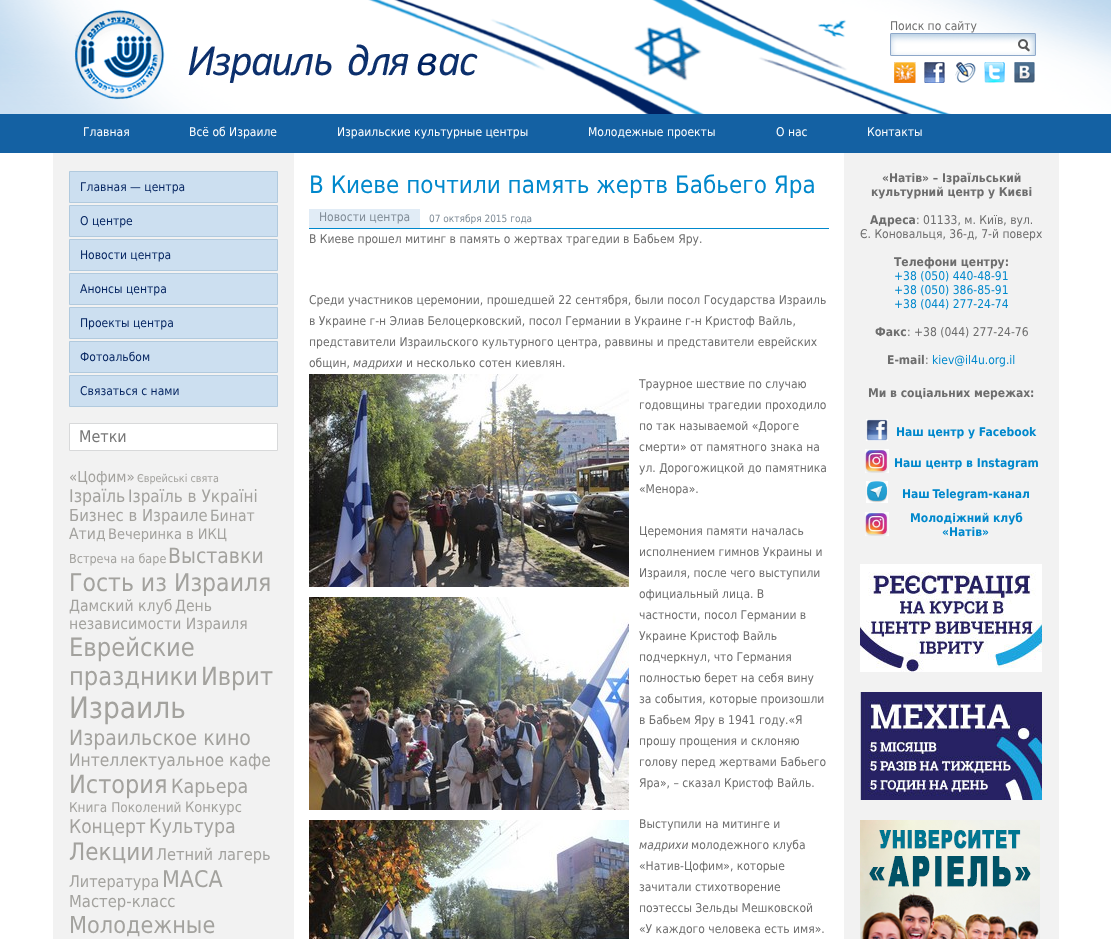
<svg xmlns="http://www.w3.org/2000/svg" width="1111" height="939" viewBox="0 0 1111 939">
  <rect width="100%" height="100%" fill="#fff"/>
  <image x="0" y="0" width="1111" height="114" href="img/1.png"/>
  <image x="74" y="9" width="404" height="91" href="img/2.png"/>
  <image x="890" y="33" width="127" height="23" href="img/3.png"/>
  <image x="1017" y="33" width="19" height="23" href="img/4.png"/>
  <image x="894" y="62" width="22" height="21" href="img/5.png"/>
  <image x="924" y="62" width="21" height="21" href="img/6.png"/>
  <image x="955" y="62" width="21" height="21" href="img/7.png"/>
  <image x="984" y="62" width="21" height="21" href="img/8.png"/>
  <image x="1014" y="62" width="21" height="21" href="img/9.png"/>
  <path d="M0 114h1111v39H0z" fill="#1461a3"/>
  <path d="M53 153h1006v786H53z" fill="#f2f2f2"/>
  <path d="M294 153h550v786H294z" fill="#fff"/>
  <path d="M69.5 171.5h208v31H69.5z" fill="#ccdff0" stroke="#b1cade"/>
  <path d="M69.5 205.5h208v31H69.5z" fill="#ccdff0" stroke="#b1cade"/>
  <path d="M69.5 239.5h208v31H69.5z" fill="#ccdff0" stroke="#b1cade"/>
  <path d="M69.5 273.5h208v31H69.5z" fill="#ccdff0" stroke="#b1cade"/>
  <path d="M69.5 307.5h208v31H69.5z" fill="#ccdff0" stroke="#b1cade"/>
  <path d="M69.5 341.5h208v31H69.5z" fill="#ccdff0" stroke="#b1cade"/>
  <path d="M69.5 375.5h208v31H69.5z" fill="#ccdff0" stroke="#b1cade"/>
  <path d="M69.5 423.5h208v27H69.5z" fill="#fff" stroke="#d8d9da"/>
  <path d="M309 228h520v1H309z" fill="#08c"/>
  <path d="M309 209h111v19H309z" fill="#e1ecf6"/>
  <image x="309" y="374" width="320" height="213" href="img/10.png"/>
  <image x="309" y="597" width="320" height="213" href="img/11.png"/>
  <image x="309" y="820" width="320" height="119" href="img/12.png"/>
  <image x="866" y="419" width="22" height="22" href="img/13.png"/>
  <image x="865" y="449" width="24" height="24" href="img/14.png"/>
  <image x="866" y="481" width="22" height="22" href="img/15.png"/>
  <image x="865" y="512" width="24" height="24" href="img/14.png"/>
  <image x="860" y="564" width="182" height="108" href="img/16.png"/>
  <image x="860" y="692" width="182" height="108" href="img/17.png"/>
  <image x="860" y="820" width="180" height="119" href="img/18.png"/>
  <text x="890" y="30" font-family="DejaVu Sans" font-size="12" fill="#6d6d6d">Поиск по сайту</text>
  <g font-family="DejaVu Sans" font-size="12" fill="#fff">
    <text x="83" y="136">Главная</text>
    <text x="189" y="136">Всё об Израиле</text>
    <text x="337" y="136">Израильские культурные центры</text>
    <text x="588" y="136">Молодежные проекты</text>
    <text x="776" y="136">О нас</text>
    <text x="867" y="136">Контакты</text>
  </g>
  <g font-family="DejaVu Sans" font-size="12" fill="#02225f">
    <text x="80" y="191">Главная — центра</text>
    <text x="80" y="225">О центре</text>
    <text x="80" y="259">Новости центра</text>
    <text x="80" y="293">Анонсы центра</text>
    <text x="80" y="327">Проекты центра</text>
    <text x="80" y="361">Фотоальбом</text>
    <text x="80" y="395">Связаться с нами</text>
  </g>
  <text x="79" y="442" font-family="DejaVu Sans" font-size="16" fill="#787878">Метки</text>
  <text x="69" y="482" font-family="DejaVu Sans" font-size="15" fill="#a3a29e">«Цофим»</text>
  <text x="137" y="482" font-family="DejaVu Sans" font-size="10.75" fill="#a3a29e">Єврейські свята</text>
  <text x="69" y="502" font-family="DejaVu Sans" font-size="17.5" fill="#a3a29e">Ізраїль</text>
  <text x="128" y="502" font-family="DejaVu Sans" font-size="17" fill="#a3a29e">Ізраїль в Україні</text>
  <text x="69" y="521" font-family="DejaVu Sans" font-size="16.5" fill="#a3a29e">Бизнес в Израиле</text>
  <g font-family="DejaVu Sans" font-size="15.6" fill="#a3a29e">
    <text x="210" y="521">Бинат</text>
    <text x="69" y="539">Атид</text>
  </g>
  <text x="108" y="539" font-family="DejaVu Sans" font-size="14.5" fill="#a3a29e">Вечеринка в ИКЦ</text>
  <text x="69" y="563" font-family="DejaVu Sans" font-size="12.5" fill="#a3a29e">Встреча на баре</text>
  <text x="168" y="563" font-family="DejaVu Sans" font-size="21" fill="#a3a29e">Выставки</text>
  <text x="69" y="591" font-family="DejaVu Sans" font-size="24.5" fill="#a3a29e">Гость из Израиля</text>
  <g font-family="DejaVu Sans" font-size="15.6" fill="#a3a29e">
    <text x="69" y="611">Дамский клуб</text>
    <text x="175" y="611">День</text>
    <text x="69" y="629">независимости Израиля</text>
  </g>
  <g font-family="DejaVu Sans" font-size="25.25" fill="#a3a29e">
    <text x="69" y="656">Еврейские</text>
    <text x="69" y="685">праздники</text>
  </g>
  <text x="201" y="685" font-family="DejaVu Sans" font-size="25" fill="#a3a29e">Иврит</text>
  <text x="69" y="718" font-family="DejaVu Sans" font-size="29.5" fill="#a3a29e">Израиль</text>
  <text x="69" y="745" font-family="DejaVu Sans" font-size="21" fill="#a3a29e">Израильское кино</text>
  <text x="69" y="766" font-family="DejaVu Sans" font-size="17.25" fill="#a3a29e">Интеллектуальное кафе</text>
  <text x="69" y="793" font-family="DejaVu Sans" font-size="25" fill="#a3a29e">История</text>
  <text x="171" y="793" font-family="DejaVu Sans" font-size="19.5" fill="#a3a29e">Карьера</text>
  <text x="69" y="812" font-family="DejaVu Sans" font-size="13.5" fill="#a3a29e">Книга Поколений</text>
  <text x="185" y="812" font-family="DejaVu Sans" font-size="14.5" fill="#a3a29e">Конкурс</text>
  <text x="69" y="833" font-family="DejaVu Sans" font-size="19" fill="#a3a29e">Концерт</text>
  <text x="149" y="833" font-family="DejaVu Sans" font-size="19.5" fill="#a3a29e">Культура</text>
  <text x="69" y="860" font-family="DejaVu Sans" font-size="24" fill="#a3a29e">Лекции</text>
  <text x="156" y="860" font-family="DejaVu Sans" font-size="16.25" fill="#a3a29e">Летний лагерь</text>
  <text x="69" y="887" font-family="DejaVu Sans" font-size="16" fill="#a3a29e">Литература</text>
  <text x="162" y="887" font-family="DejaVu Sans" font-size="23" fill="#a3a29e">МАСА</text>
  <text x="69" y="907" font-family="DejaVu Sans" font-size="16.5" fill="#a3a29e">Мастер-класс</text>
  <text x="69" y="933" font-family="DejaVu Sans" font-size="23.25" fill="#a3a29e">Молодежные</text>
  <text x="309" y="193" font-family="DejaVu Sans" font-size="24" fill="#08c">В Киеве почтили память жертв Бабьего Яра</text>
  <text x="319" y="221" font-family="DejaVu Sans" font-size="12" fill="#808c97">Новости центра</text>
  <text x="429" y="222" font-family="DejaVu Sans" font-size="10" fill="#808c97">07 октября 2015 года</text>
  <g font-family="DejaVu Sans" font-size="12" fill="#6d6d6d">
    <text x="309" y="243">В Киеве прошел митинг в память о жертвах трагедии в Бабьем Яру.</text>
    <text x="309" y="304">Среди участников церемонии, прошедшей 22 сентября, были посол Государства Израиль</text>
    <text x="309" y="325">в Украине г-н Элиав Белоцерковский, посол Германии в Украине г-н Кристоф Вайль,</text>
    <text x="309" y="346">представители Израильского культурного центра, раввины и представители еврейских</text>
    <text x="309" y="367">общин,</text>
  </g>
  <text x="353" y="367" font-family="DejaVu Sans" font-size="12" font-style="italic" fill="#6d6d6d">мадрихи</text>
  <g font-family="DejaVu Sans" font-size="12" fill="#6d6d6d">
    <text x="406" y="367">и несколько сотен киевлян.</text>
    <text x="639" y="388">Траурное шествие по случаю</text>
    <text x="639" y="409">годовщины трагедии проходило</text>
    <text x="639" y="430">по так называемой «Дороге</text>
    <text x="639" y="451">смерти» от памятного знака на</text>
    <text x="639" y="472">ул. Дорогожицкой до памятника</text>
    <text x="639" y="493">«Менора».</text>
    <text x="639" y="535">Церемония памяти началась</text>
    <text x="639" y="556">исполнением гимнов Украины и</text>
    <text x="639" y="577">Израиля, после чего выступили</text>
    <text x="639" y="598">официальный лица. В</text>
    <text x="639" y="619">частности, посол Германии в</text>
    <text x="639" y="640">Украине Кристоф Вайль</text>
    <text x="639" y="661">подчеркнул, что Германия</text>
    <text x="639" y="682">полностью берет на себя вину</text>
    <text x="639" y="703">за события, которые произошли</text>
    <text x="639" y="724">в Бабьем Яру в 1941 году.«Я</text>
    <text x="639" y="745">прошу прощения и склоняю</text>
    <text x="639" y="766">голову перед жертвами Бабьего</text>
    <text x="639" y="787">Яра», – сказал Кристоф Вайль.</text>
    <text x="639" y="828">Выступили на митинге и</text>
  </g>
  <text x="639" y="849" font-family="DejaVu Sans" font-size="12" font-style="italic" fill="#6d6d6d">мадрихи</text>
  <g font-family="DejaVu Sans" font-size="12" fill="#6d6d6d">
    <text x="691" y="849">молодежного клуба</text>
    <text x="639" y="870">«Натив-Цофим», которые</text>
    <text x="639" y="891">зачитали стихотворение</text>
    <text x="639" y="912">поэтессы Зельды Мешковской</text>
    <text x="639" y="933">«У каждого человека есть имя».</text>
  </g>
  <g font-family="DejaVu Sans" font-size="12" font-weight="bold" fill="#6d6d6d">
    <text x="882" y="182">«Натів» – Ізраїльський</text>
    <text x="871" y="196">культурний центр у Києві</text>
    <text x="870" y="224">Адреса</text>
  </g>
  <g font-family="DejaVu Sans" font-size="12" fill="#6d6d6d">
    <text x="916" y="224">: 01133, м. Київ, вул.</text>
    <text x="860" y="238">Є. Коновальця, 36-д, 7-й поверх</text>
  </g>
  <text x="894" y="266" font-family="DejaVu Sans" font-size="12" font-weight="bold" fill="#6d6d6d">Телефони центру:</text>
  <g font-family="DejaVu Sans" font-size="12" fill="#08c">
    <text x="894" y="280">+38 (050) 440-48-91</text>
    <text x="894" y="294">+38 (050) 386-85-91</text>
    <text x="894" y="308">+38 (044) 277-24-74</text>
  </g>
  <text x="875" y="336" font-family="DejaVu Sans" font-size="12" font-weight="bold" fill="#6d6d6d">Факс</text>
  <text x="907" y="336" font-family="DejaVu Sans" font-size="12" fill="#6d6d6d">: +38 (044) 277-24-76</text>
  <text x="887" y="364" font-family="DejaVu Sans" font-size="12" font-weight="bold" fill="#6d6d6d">E-mail</text>
  <text x="925" y="364" font-family="DejaVu Sans" font-size="12" fill="#6d6d6d">:</text>
  <text x="932" y="364" font-family="DejaVu Sans" font-size="12" fill="#08c">kiev@il4u.org.il</text>
  <text x="868" y="397" font-family="DejaVu Sans" font-size="12" font-weight="bold" fill="#6d6d6d">Ми в соціальних мережах:</text>
  <g font-family="DejaVu Sans" font-size="12" font-weight="bold" fill="#08c">
    <text x="896" y="436">Наш центр у Facebook</text>
    <text x="894" y="467">Наш центр в Instagram</text>
    <text x="902" y="498" word-spacing="-1">Наш Telegram-канал</text>
    <text x="910" y="522">Молодіжний клуб</text>
    <text x="942" y="536">«Натів»</text>
  </g>
</svg>
